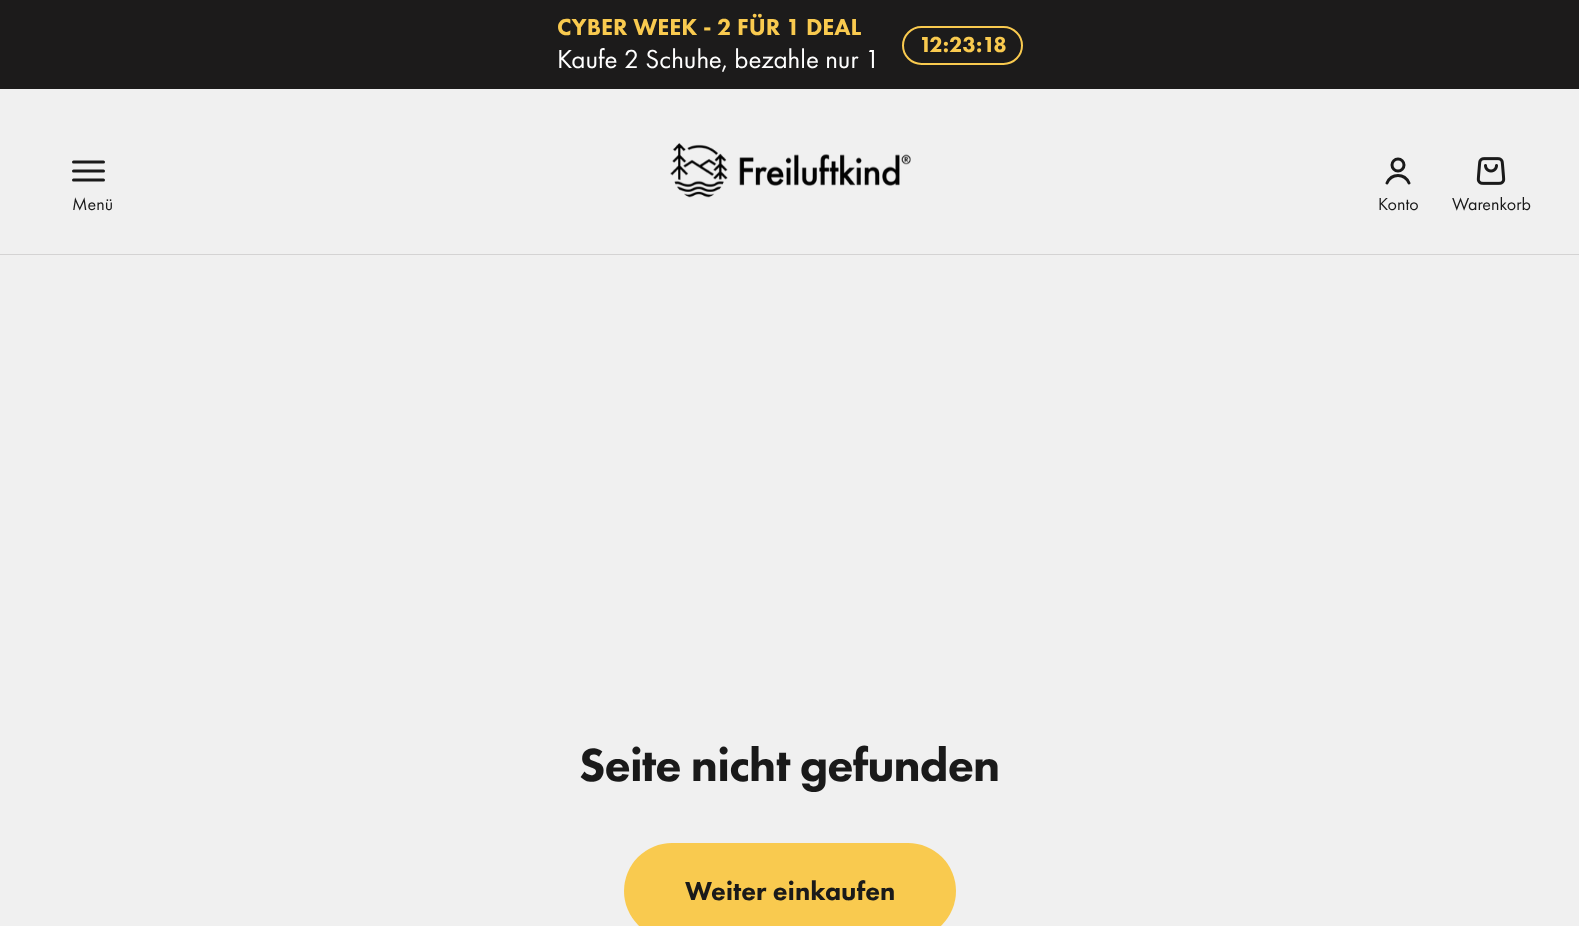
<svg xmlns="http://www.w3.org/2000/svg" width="1579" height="926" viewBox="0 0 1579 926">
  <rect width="100%" height="100%" fill="#f0f0f0"/>
  <path d="M0 0h1579v89H0z" fill="#1c1b1b"/>
  <rect x="903" y="27" width="119" height="37" rx="18.5" fill="none" stroke="#f9ca4f" stroke-width="2"/>
  <path d="M0 254V255H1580V90V254Z" fill="#d4d3d3"/>
  <image x="670" y="143" width="241" height="55" href="img/1.png"/>
  <path d="M73.5 162H103.5M73.5 171H103.5M73.5 180H103.5" fill="none" stroke="#1a1a1a" stroke-width="3" stroke-linecap="round"/>
  <circle cx="1398" cy="165" r="6" fill="none" stroke="#1a1a1a" stroke-width="3"/>
  <path d="M1387 183C1391.5 173 1404.5 173 1409 183" fill="none" stroke="#1a1a1a" stroke-width="3" stroke-linecap="round"/>
  <image x="1476" y="157" width="30" height="28" href="img/2.png"/>
  <rect x="624" y="843" width="332" height="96" rx="48" fill="#f9ca4f"/>
  <text x="557" y="35" font-family="Futura PT" font-size="24" font-weight="900" fill="#f9ca4f">CYBER WEEK - 2 FÜR 1 DEAL</text>
  <text x="557" y="68" font-family="Futura PT" font-size="27" fill="#fff">Kaufe 2 Schuhe, bezahle nur 1</text>
  <text x="919" y="52" font-family="Futura PT" font-size="22.5" font-weight="900" fill="#f9ca4f">12:23:18</text>
  <g font-family="Futura PT" font-size="18" fill="#1a1a1a">
    <text x="72" y="210">Menü</text>
    <text x="1378" y="210">Konto</text>
    <text x="1452" y="210">Warenkorb</text>
  </g>
  <text x="579" y="781" font-family="Futura PT" font-size="48" font-weight="900" letter-spacing="-1" fill="#1a1a1a">Seite nicht gefunden</text>
  <text x="685" y="900" font-family="Futura PT" font-size="27" font-weight="900" fill="#1a1a1a">Weiter einkaufen</text>
</svg>
